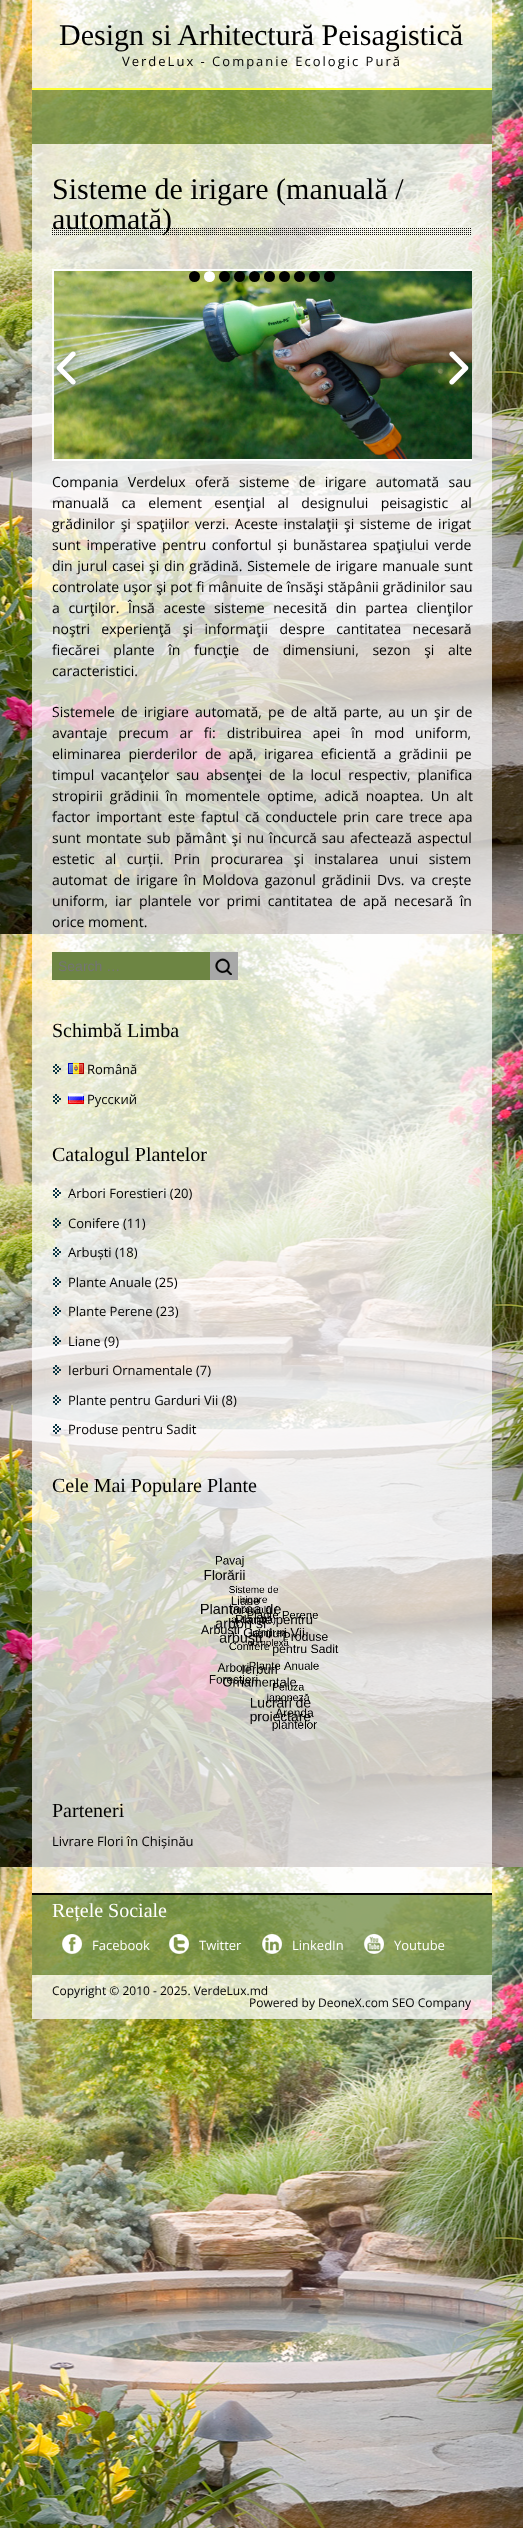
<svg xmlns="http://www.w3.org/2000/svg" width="523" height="2528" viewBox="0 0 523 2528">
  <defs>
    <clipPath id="clip1"><path d="M52 264h420v207H52z"/></clipPath>
  </defs>
  <rect width="100%" height="100%" fill="#fff"/>
  <image x="0" y="0" width="523" height="2528" href="img/1.png"/>
  <path d="M32 0h460v88H32z" fill="#ffffffbf"/>
  <path d="M32 88h460v2H32z" fill="#ff3"/>
  <path d="M32 90h460v54H32z" fill="#77914ccc"/>
  <path d="M32 144h460v1749H32z" fill="#ffffffbf"/>
  <image x="52" y="228" width="419" height="7" href="img/2.png"/>
  <g clip-path="url(#clip1)">
    <path d="M53 270h422v190H53z" fill="none" stroke="#fff" stroke-width="2"/>
  </g>
  <image x="54" y="271" width="418" height="188" href="img/3.png"/>
  <circle cx="194.5" cy="276.5" r="5.5" fill="#000"/>
  <circle cx="209.5" cy="276.5" r="5.5" fill="#fff"/>
  <circle cx="224.5" cy="276.5" r="5.5" fill="#000"/>
  <circle cx="239.5" cy="276.5" r="5.5" fill="#000"/>
  <circle cx="254.5" cy="276.5" r="5.5" fill="#000"/>
  <circle cx="269.5" cy="276.5" r="5.5" fill="#000"/>
  <circle cx="284.5" cy="276.5" r="5.5" fill="#000"/>
  <circle cx="299.5" cy="276.5" r="5.5" fill="#000"/>
  <circle cx="314.5" cy="276.5" r="5.5" fill="#000"/>
  <circle cx="329.5" cy="276.5" r="5.5" fill="#000"/>
  <image x="53" y="349" width="26" height="40" href="img/4.png"/>
  <image x="446" y="350" width="24" height="38" href="img/5.png"/>
  <path d="M52 952h158v28H52z" fill="#6d8543"/>
  <path d="M210 952h28v28H210z" fill="#a8a8a8"/>
  <image x="215" y="958" width="17" height="17" href="img/6.png"/>
  <image x="53" y="1064" width="8" height="10" href="img/7.png"/>
  <image x="68" y="1063" width="16" height="11" href="img/8.png"/>
  <image x="53" y="1094" width="8" height="10" href="img/9.png"/>
  <image x="68" y="1093" width="16" height="11" href="img/10.png"/>
  <image x="53" y="1188" width="8" height="10" href="img/11.png"/>
  <image x="53" y="1218" width="8" height="10" href="img/12.png"/>
  <image x="53" y="1247" width="8" height="10" href="img/13.png"/>
  <image x="53" y="1277" width="8" height="10" href="img/14.png"/>
  <image x="53" y="1306" width="8" height="10" href="img/15.png"/>
  <image x="53" y="1336" width="8" height="10" href="img/16.png"/>
  <image x="53" y="1365" width="8" height="10" href="img/17.png"/>
  <image x="53" y="1395" width="8" height="10" href="img/18.png"/>
  <image x="53" y="1424" width="8" height="10" href="img/19.png"/>
  <image x="201" y="1556" width="138" height="175" href="img/20.png"/>
  <path d="M32 1895h460v80H32z" fill="#77914ccc"/>
  <path d="M32 1893h460v2H32z" fill="#000"/>
  <image x="62" y="1934" width="20" height="20" href="img/21.png"/>
  <image x="169" y="1934" width="20" height="20" href="img/22.png"/>
  <image x="262" y="1934" width="20" height="20" href="img/23.png"/>
  <image x="364" y="1934" width="20" height="20" href="img/24.png"/>
  <path d="M32 1975h460v44H32z" fill="#ffffffbf"/>
  <text x="59" y="45" font-family="Liberation Serif" font-size="30" fill="#000">Design si Arhitectură Peisagistică</text>
  <text x="122" y="66" font-family="Open Sans" font-size="13" letter-spacing="2" fill="#000">VerdeLux - Companie Ecologic Pură</text>
  <g font-family="Liberation Serif" font-size="30" fill="#000">
    <text x="52" y="199">Sisteme de irigare (manuală /</text>
    <text x="52" y="229">automată)</text>
  </g>
  <g font-family="Open Sans" font-size="14" fill="#000">
    <text x="52" y="487" word-spacing="5.75">Compania Verdelux oferă sisteme de irigare automată sau</text>
    <text x="52" y="508" word-spacing="8.75">manuală ca element esenţial al designului peisagistic al</text>
    <text x="52" y="529" word-spacing="2">grădinilor şi spaţiilor verzi. Aceste instalaţii şi sisteme de irigat</text>
    <text x="52" y="550" word-spacing="2">sunt imperative pentru confortul și bunăstarea spaţiului verde</text>
    <text x="52" y="571" word-spacing="1">din jurul casei şi din grădină. Sistemele de irigare manuale sunt</text>
    <text x="52" y="592" word-spacing="0.25">controlate uşor şi pot fi mânuite de însăşi stăpânii grădinilor sau</text>
    <text x="52" y="613" word-spacing="5">a curţilor. Însă aceste sisteme necesită din partea clienţilor</text>
    <text x="52" y="634" word-spacing="7.75">noştri experienţă şi informaţii despre cantitatea necesară</text>
    <text x="52" y="655" word-spacing="10">fiecărei plante în funcţie de dimensiuni, sezon şi alte</text>
    <text x="52" y="676">caracteristici.</text>
    <text x="52" y="717" word-spacing="2.5">Sistemele de irigiare automată, pe de altă parte, au un şir de</text>
    <text x="52" y="738" word-spacing="7.25">avantaje precum ar fi: distribuirea apei în mod uniform,</text>
    <text x="52" y="759" word-spacing="3.75">eliminarea pierderilor de apă, irigarea eficientă a grădinii pe</text>
    <text x="52" y="780" word-spacing="3.25">timpul vacanţelor sau absenţei de la locul respectiv, planifica</text>
    <text x="52" y="801" word-spacing="3.5">stropirii grădinii în momentele optime, adică noaptea. Un alt</text>
    <text x="52" y="822" word-spacing="2.25">factor important este faptul că conductele prin care trece apa</text>
    <text x="52" y="843" word-spacing="1.5">sunt montate sub pământ şi nu încurcă sau afectează aspectul</text>
    <text x="52" y="864" word-spacing="6.75">estetic al curții. Prin procurarea şi instalarea unui sistem</text>
    <text x="52" y="885" word-spacing="2.5">automat de irigare în Moldova gazonul grădinii Dvs. va crește</text>
    <text x="52" y="906" word-spacing="3.25">uniform, iar plantele vor primi cantitatea de apă necesară în</text>
    <text x="52" y="927">orice moment.</text>
  </g>
  <text x="58" y="971" font-family="Liberation Sans" font-size="14" fill="#757575">Search …</text>
  <text x="52" y="1037" font-family="Liberation Serif" font-size="20" fill="#000">Schimbă Limba</text>
  <g font-family="Open Sans" font-size="13" fill="#000">
    <text x="87" y="1074">Română</text>
    <text x="87" y="1104">Русский</text>
  </g>
  <text x="52" y="1161" font-family="Liberation Serif" font-size="20" fill="#000">Catalogul Plantelor</text>
  <g font-family="Open Sans" font-size="13" fill="#000">
    <text x="68" y="1198">Arbori Forestieri (20)</text>
    <text x="68" y="1228">Conifere (11)</text>
    <text x="68" y="1257">Arbuști (18)</text>
    <text x="68" y="1287">Plante Anuale (25)</text>
    <text x="68" y="1316">Plante Perene (23)</text>
    <text x="68" y="1346">Liane (9)</text>
    <text x="68" y="1375">Ierburi Ornamentale (7)</text>
    <text x="68" y="1405">Plante pentru Garduri Vii (8)</text>
    <text x="68" y="1434">Produse pentru Sadit</text>
  </g>
  <g font-family="Liberation Serif" font-size="20" fill="#000">
    <text x="52" y="1492">Cele Mai Populare Plante</text>
    <text x="52" y="1817">Parteneri</text>
  </g>
  <text x="52" y="1846" font-family="Open Sans" font-size="13" fill="#000">Livrare Flori în Chișinău</text>
  <text x="52" y="1917" font-family="Liberation Serif" font-size="20" fill="#fff">Rețele Sociale</text>
  <g font-family="Open Sans" font-size="13" fill="#fff">
    <text x="92" y="1950">Facebook</text>
    <text x="199" y="1950">Twitter</text>
    <text x="292" y="1950">LinkedIn</text>
    <text x="394" y="1950">Youtube</text>
  </g>
  <g font-family="Open Sans" font-size="12" fill="#000">
    <text x="52" y="1995">Copyright © 2010 - 2025. VerdeLux.md</text>
    <text x="249" y="2007">Powered by DeoneX.com SEO Company</text>
  </g>
</svg>
